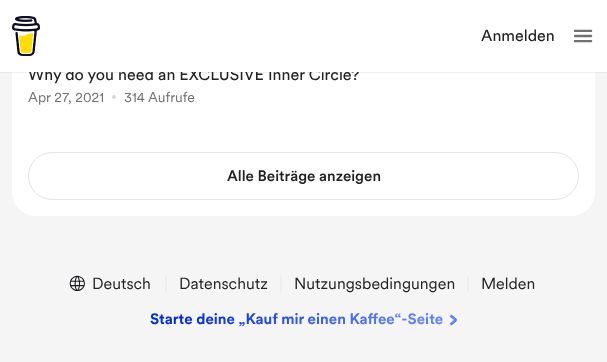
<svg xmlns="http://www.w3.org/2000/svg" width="607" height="362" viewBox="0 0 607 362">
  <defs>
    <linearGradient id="g1" gradientUnits="userSpaceOnUse" x1="169" y1="262" x2="438" y2="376"><stop offset="0.14" stop-color="#002cde"/><stop offset="0.82" stop-color="#5f7fff"/></linearGradient>
  </defs>
  <rect width="100%" height="100%" fill="#f5f5f5"/>
  <rect x="12" y="-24" width="583" height="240" rx="24" fill="#fff"/>
  <path d="M0 1h607v72H0z" fill="#0000000f" filter="blur(0.5px)"/>
  <circle cx="114" cy="97" r="2" fill="#d9d9d9"/>
  <rect x="28.5" y="152.5" width="550" height="47" rx="23.5" fill="none" stroke="#e5e5e5"/>
  <image x="69" y="275" width="16" height="16" href="img/3.png"/>
  <path d="M166 276V292" fill="none" stroke="#e7e7e7"/>
  <path d="M281 276V292" fill="none" stroke="#e7e7e7"/>
  <path d="M468 276V292" fill="none" stroke="#e7e7e7"/>
  <path d="M450.5 315.5C457.5 321.5 457.5 318.5 450.5 324.5" fill="none" stroke="#5f7fff" stroke-width="2.7"/>
  <text x="28" y="80" font-family="'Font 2'" font-size="16" fill="#222">Why do you need an EXCLUSIVE Inner Circle?</text>
  <path d="M0 0h607v72H0z" fill="#fff"/>
  <image x="573" y="29" width="20" height="14" href="img/2.png"/>
  <text x="481" y="41" font-family="'Font 2'" font-size="16" fill="#222">Anmelden</text>
  <image x="12" y="16" width="28" height="40" href="img/1.png"/>
  <g font-family="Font" font-size="14" fill="#717171">
    <text x="28" y="102">Apr 27, 2021</text>
    <text x="124" y="102">314 Aufrufe</text>
  </g>
  <text x="227" y="181" font-family="Font" font-size="15" font-weight="500" fill="#222">Alle Beiträge anzeigen</text>
  <g font-family="Font" font-size="16" fill="#222">
    <text x="92" y="289">Deutsch</text>
    <text x="179" y="289">Datenschutz</text>
    <text x="294" y="289">Nutzungsbedingungen</text>
    <text x="481" y="289">Melden</text>
  </g>
  <text x="150" y="324" font-family="Font" font-size="15" font-weight="bold" fill="url(#g1)">Starte deine „Kauf mir einen Kaffee“-Seite</text>
</svg>
